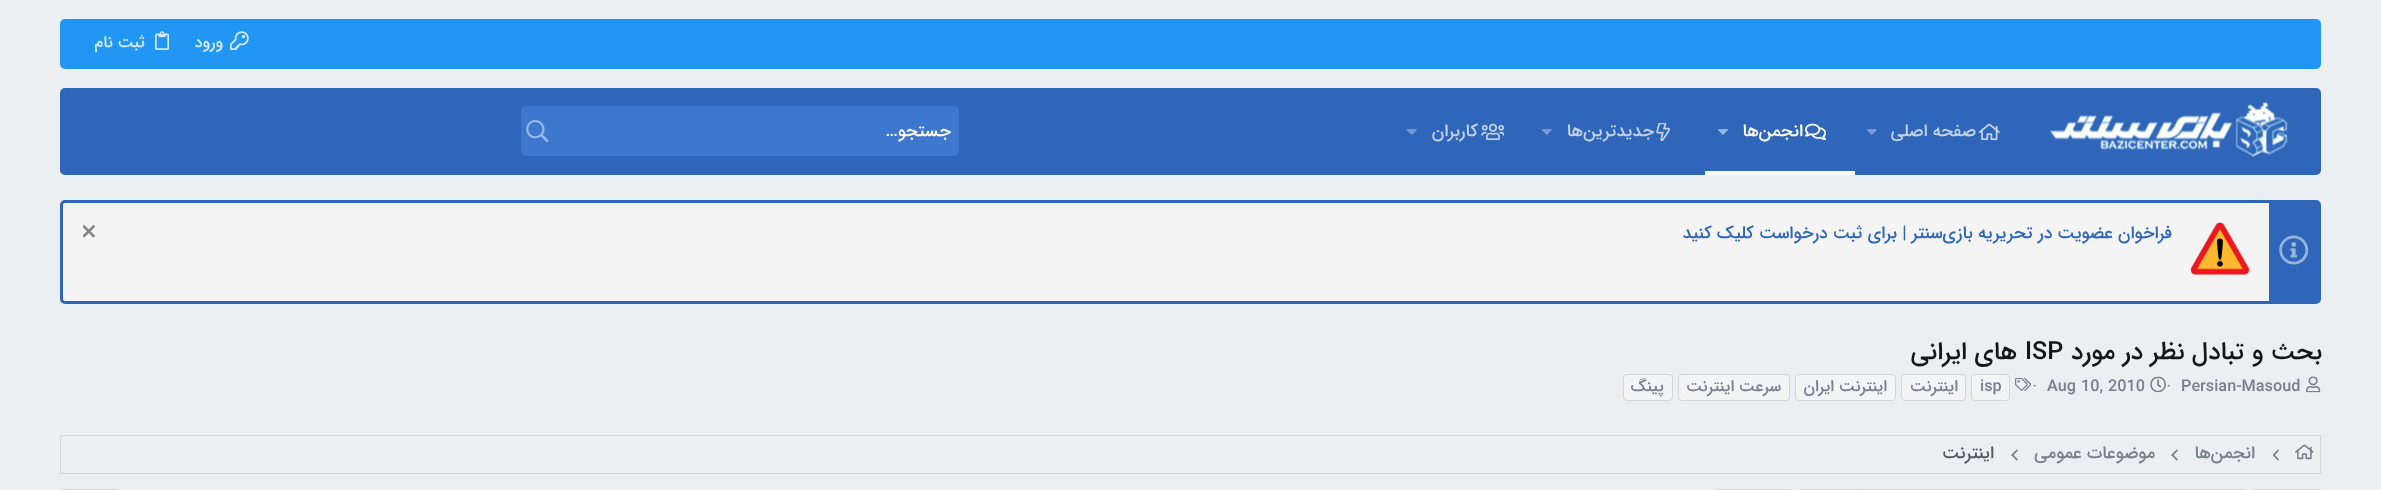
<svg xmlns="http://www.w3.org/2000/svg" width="2381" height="490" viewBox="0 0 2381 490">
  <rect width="100%" height="100%" fill="#eceff1"/>
  <rect x="60" y="19" width="2261" height="50" rx="5" fill="#2196f3"/>
  <image x="230" y="31" width="19" height="19" href="img/1.png"/>
  <image x="155" y="31" width="14" height="19" href="img/2.png"/>
  <rect x="60" y="88" width="2261" height="87" rx="5" fill="#2f66b9"/>
  <image x="2050" y="102" width="238" height="55" href="img/3.png"/>
  <image x="1979" y="123" width="21" height="18" href="img/4.png"/>
  <image x="1866" y="129" width="11" height="6" href="img/5.png"/>
  <path d="M1705 171h150v4H1705z" fill="#fff"/>
  <image x="1805" y="123" width="21" height="18" href="img/6.png"/>
  <image x="1718" y="129" width="10" height="6" href="img/7.png"/>
  <image x="1656" y="123" width="14" height="18" href="img/8.png"/>
  <image x="1541" y="129" width="11" height="6" href="img/5.png"/>
  <image x="1481" y="123" width="23" height="18" href="img/9.png"/>
  <image x="1406" y="129" width="11" height="6" href="img/5.png"/>
  <rect x="521" y="106" width="438" height="50" rx="5" fill="#3e77ce"/>
  <image x="526" y="120" width="23" height="22" href="img/10.png"/>
  <rect x="61.5" y="201.5" width="2258" height="101" rx="3.5" fill="#f4f4f4" stroke="#2f66b9" stroke-width="3"/>
  <path d="M2269 203h49v98H2269z" fill="#2f66b9"/>
  <image x="2279" y="235" width="30" height="30" href="img/11.png"/>
  <image x="2190" y="222" width="60" height="53" href="img/12.png"/>
  <image x="83" y="225" width="12" height="13" href="img/13.png"/>
  <image x="2306" y="376" width="15" height="17" href="img/14.png"/>
  <image x="2150" y="376" width="16" height="17" href="img/15.png"/>
  <image x="2015" y="378" width="16" height="13" href="img/16.png"/>
  <rect x="1971.5" y="374.5" width="38" height="26" rx="3.5" fill="#f3f4f5" stroke="#d5d5d5"/>
  <rect x="1901.5" y="374.5" width="64" height="26" rx="3.5" fill="#f3f4f5" stroke="#d5d5d5"/>
  <rect x="1795.5" y="374.5" width="100" height="26" rx="3.5" fill="#f3f4f5" stroke="#d5d5d5"/>
  <rect x="1678.5" y="374.5" width="111" height="26" rx="3.5" fill="#f3f4f5" stroke="#d5d5d5"/>
  <rect x="1623.5" y="374.5" width="49" height="26" rx="3.5" fill="#f3f4f5" stroke="#d5d5d5"/>
  <path d="M60.5 435.5h2260v38H60.5z" fill="none" stroke="#d5d5d5"/>
  <image x="2295" y="444" width="19" height="16" href="img/17.png"/>
  <image x="2273" y="449" width="6" height="12" href="img/18.png"/>
  <image x="2171" y="449" width="7" height="12" href="img/19.png"/>
  <image x="2011" y="449" width="7" height="12" href="img/19.png"/>
  <path d="M2253.5 489.5h67v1H2253.5z" fill="none" stroke="#d5d5d5"/>
  <path d="M1858 489h387v1H1858z" fill="#d5d5d5"/>
  <path d="M1799.5 489.5h58v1H1799.5z" fill="none" stroke="#d5d5d5"/>
  <path d="M1715.5 489.5h75v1H1715.5z" fill="none" stroke="#d5d5d5"/>
  <rect x="60.5" y="489.5" width="59" height="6" rx="4.5" fill="none" stroke="#d5d5d5"/>
  <g font-family="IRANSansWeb" font-size="16.25" font-weight="500" direction="rtl" fill="#d3eafd">
    <text x="223" y="47">ورود</text>
    <text x="145" y="47">ثبت نام</text>
  </g>
  <text x="1976" y="136" font-family="IRANSansWeb" font-size="17.5" font-weight="500" direction="rtl" fill="#c1d1ea">صفحه اصلی</text>
  <text x="1803" y="136" font-family="IRANSansWeb" font-size="17.5" font-weight="500" direction="rtl" fill="#fff">انجمن‌ها</text>
  <g font-family="IRANSansWeb" font-size="17.5" font-weight="500" direction="rtl" fill="#c1d1ea">
    <text x="1654" y="136">جدیدترین‌ها</text>
    <text x="1478" y="136">کاربران</text>
  </g>
  <text x="951" y="136" font-family="IRANSansWeb" font-size="17.5" font-weight="500" direction="rtl" fill="#fff">جستجو…</text>
  <text x="2172" y="238" font-family="IRANSansWeb" font-size="17.5" font-weight="500" direction="rtl" fill="#2f66b9">فراخوان عضویت در تحریریه بازی‌سنتر | برای ثبت درخواست کلیک کنید</text>
  <text x="2322" y="359" font-family="IRANSansWeb" font-size="25" font-weight="500" direction="rtl" fill="#141618">بحث و تبادل نظر در مورد</text>
  <text x="2025" y="359" font-family="IRANSansWeb" font-size="25" font-weight="500" fill="#141618">ISP</text>
  <text x="2017" y="359" font-family="IRANSansWeb" font-size="25" font-weight="500" direction="rtl" fill="#141618">های ایرانی</text>
  <text x="2181" y="391" font-family="IRANSansWeb" font-size="16.25" font-weight="500" fill="#76818d">Persian-Masoud</text>
  <text x="2166" y="391" font-family="Liberation Serif" font-size="16.25" fill="#76818d">·</text>
  <text x="2047" y="391" font-family="IRANSansWeb" font-size="16.25" font-weight="500" fill="#76818d">Aug 10, 2010</text>
  <text x="2032" y="391" font-family="Liberation Serif" font-size="16.25" fill="#76818d">·</text>
  <text x="1980" y="391" font-family="IRANSansWeb" font-size="16.25" font-weight="500" fill="#76818d">isp</text>
  <g font-family="IRANSansWeb" font-size="16.25" font-weight="500" direction="rtl" fill="#76818d">
    <text x="1958" y="391">اینترنت</text>
    <text x="1887" y="391">اینترنت ایران</text>
    <text x="1781" y="391">سرعت اینترنت</text>
    <text x="1664" y="391">پینگ</text>
  </g>
  <g font-family="IRANSansWeb" font-size="17.5" font-weight="500" direction="rtl" fill="#76818d">
    <text x="2255" y="458">انجمن‌ها</text>
    <text x="2155" y="458">موضوعات عمومی</text>
  </g>
  <text x="1994" y="458" font-family="IRANSansWeb" font-size="17.5" font-weight="500" direction="rtl" fill="#535b63">اینترنت</text>
</svg>
